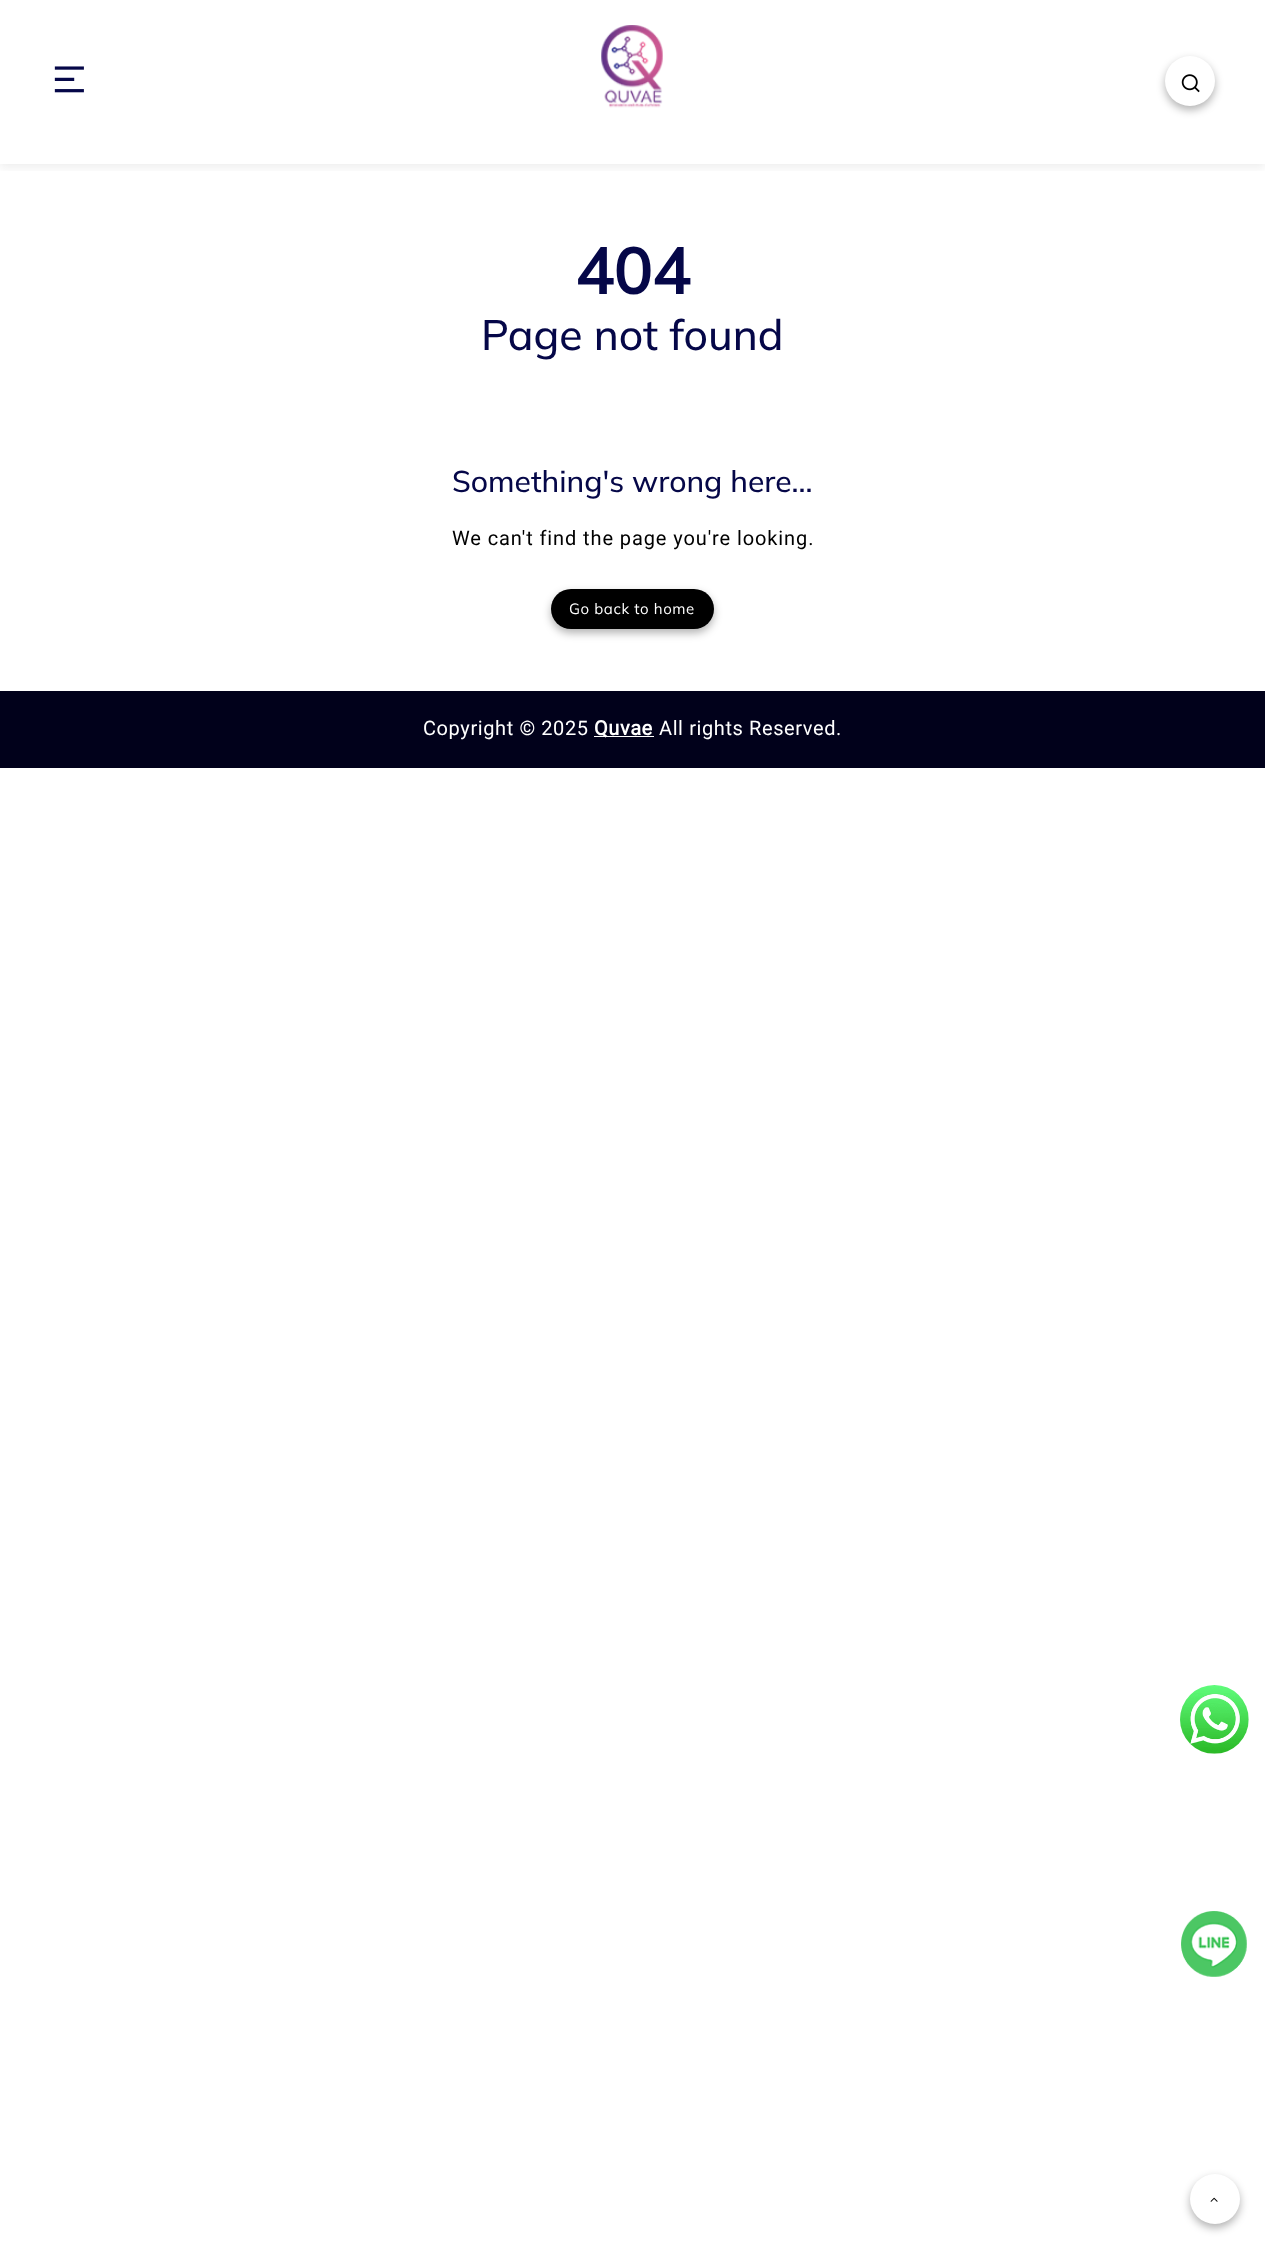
<svg xmlns="http://www.w3.org/2000/svg" width="1265" height="2248" viewBox="0 0 1265 2248">
  <defs>
    <clipPath id="clip1"><path d="M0 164h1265v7H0z"/></clipPath>
  </defs>
  <rect width="100%" height="100%" fill="#fff"/>
  <g clip-path="url(#clip1)">
    <path d="M0 4h1265v164H0z" fill="#36363614" filter="blur(4px)"/>
  </g>
  <image x="54" y="66" width="30" height="27" href="img/1.png"/>
  <image x="601" y="25" width="62" height="83" href="img/2.png"/>
  <rect x="1165" y="60" width="50" height="50" rx="25" fill="#0000004d" filter="blur(4px)"/>
  <circle cx="1190" cy="81" r="25" fill="#fff"/>
  <image x="1181" y="74" width="19" height="19" href="img/3.png"/>
  <rect x="551" y="593" width="163" height="40" rx="20" fill="#0000004d" filter="blur(4px)"/>
  <rect x="551" y="589" width="163" height="40" rx="20" fill="#000"/>
  <path d="M0 691h1265v77H0z" fill="#01011b"/>
  <path d="M594 736h60v1H594z" fill="#fff"/>
  <rect x="1190" y="2178" width="50" height="50" rx="25" fill="#0000004d" filter="blur(4px)"/>
  <circle cx="1215" cy="2199" r="25" fill="#fff"/>
  <image x="1210" y="2197" width="8" height="5" href="img/4.png"/>
  <image x="1180" y="1685" width="69" height="69" href="img/5.png"/>
  <image x="1181" y="1911" width="66" height="66" href="img/6.png"/>
  <text x="575" y="294" font-family="Mulish" font-size="64" font-weight="bold" fill="#050748">404</text>
  <text x="481" y="350" font-family="Mulish" font-size="42.5" font-weight="500" fill="#050748">Page not found</text>
  <text x="452" y="492" font-family="Mulish" font-size="30" font-weight="500" fill="#050748">Something's wrong here...</text>
  <text x="452" y="545" font-family="Roboto" font-size="20" letter-spacing="0.9" fill="#000">We can't find the page you're looking.</text>
  <text x="569" y="614" font-family="Mulish" font-size="15" letter-spacing="0.6" fill="#fff">Go back to home</text>
  <text x="423" y="735" font-family="Roboto" font-size="20" letter-spacing="0.6" fill="#fff">Copyright © 2025</text>
  <text x="594" y="735" font-family="Roboto" font-size="20" font-weight="bold" letter-spacing="0.6" fill="#fff">Quvae</text>
  <text x="659" y="735" font-family="Roboto" font-size="20" letter-spacing="0.6" fill="#fff">All rights Reserved.</text>
</svg>
